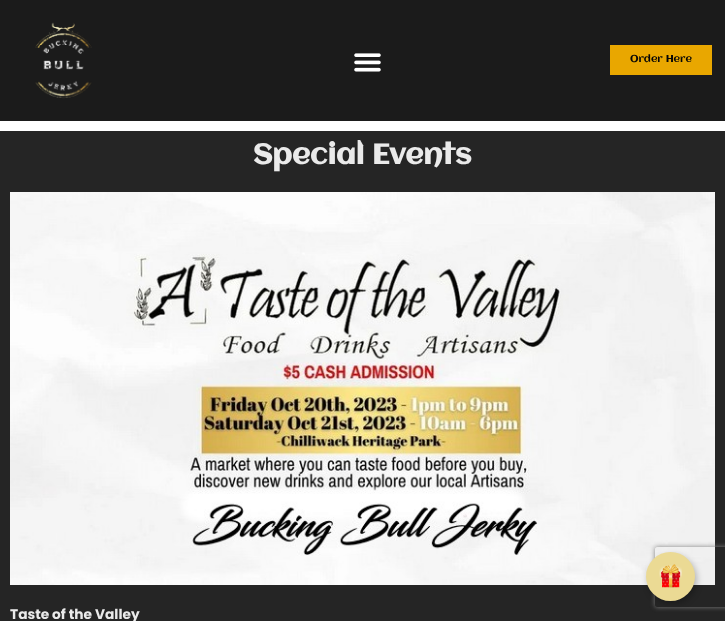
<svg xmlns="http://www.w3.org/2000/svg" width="725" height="621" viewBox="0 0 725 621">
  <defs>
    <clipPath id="clip1"><path d="M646 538H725V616H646ZM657 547H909C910 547 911 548 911 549V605C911 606 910 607 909 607H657C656 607 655 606 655 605V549C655 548 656 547 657 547Z" clip-rule="evenodd"/></clipPath>
  </defs>
  <rect width="100%" height="100%" fill="#fff"/>
  <path d="M0 0h725v121H0z" fill="#1b1b1b"/>
  <image x="35" y="22" width="57" height="77" href="img/1.png"/>
  <image x="354" y="53" width="27" height="19" href="img/2.png"/>
  <path d="M610 45h102v30H610z" fill="#e9a700"/>
  <path d="M0 131h725v490H0z" fill="#252525"/>
  <image x="10" y="192" width="705" height="393" href="img/3.png"/>
  <g clip-path="url(#clip1)">
    <rect x="655" y="547" width="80" height="60" rx="2" fill="#808080" filter="blur(2.5px)"/>
  </g>
  <rect x="648" y="555" width="49" height="49" rx="24.5" fill="#00000040" filter="blur(3px)"/>
  <circle cx="670.5" cy="576.5" r="24.5" fill="#ebda94"/>
  <image x="659" y="564" width="23" height="24" href="img/4.png"/>
  <text x="630" y="62" font-family="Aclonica" font-size="10" fill="#060606">Order Here</text>
  <text x="253" y="164" font-family="Aclonica" font-size="28" font-weight="bold" fill="#eaeaea">Special Events</text>
  <text x="10" y="619" font-family="Poppins" font-size="13.75" font-weight="bold" fill="#eaeaea">Taste of the Valley</text>
</svg>
